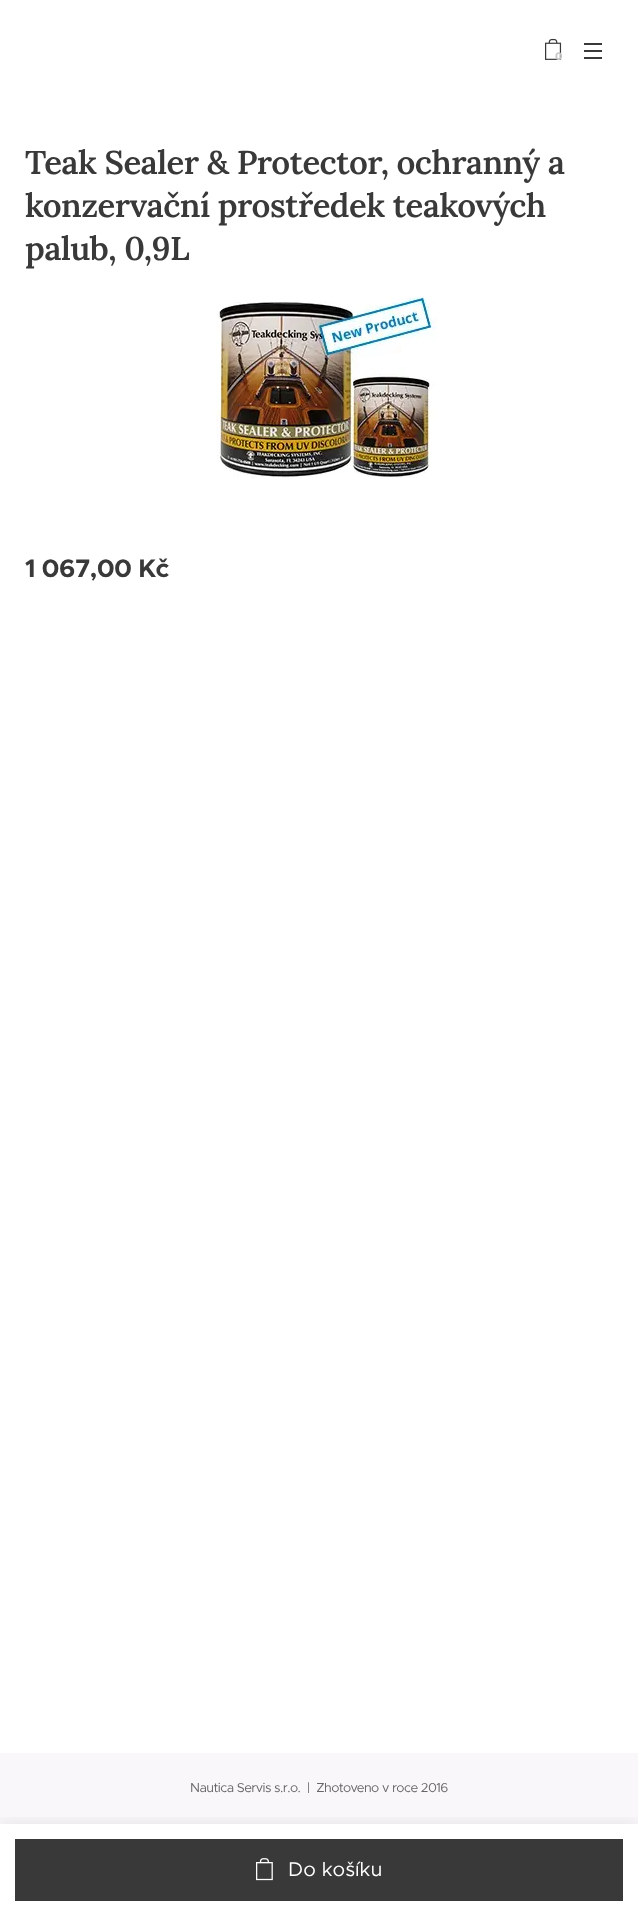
<svg xmlns="http://www.w3.org/2000/svg" width="638" height="1916" viewBox="0 0 638 1916">
  <defs>
    <clipPath id="clip1"><path d="M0 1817h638v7H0z"/></clipPath>
  </defs>
  <rect width="100%" height="100%" fill="#fff"/>
  <image x="545" y="38" width="17" height="22" href="img/1.png"/>
  <path d="M584 50h18v2H584z" fill="#393939"/>
  <path d="M584 43h18v2H584z" fill="#393939"/>
  <path d="M584 57h18v2H584z" fill="#393939"/>
  <image x="215" y="297" width="223" height="181" href="img/2.png"/>
  <path d="M0 1753h638v71H0z" fill="#f9f7fa"/>
  <g clip-path="url(#clip1)">
    <path d="M0 1820h638v92H0z" fill="#0000000f" filter="blur(7.5px)"/>
  </g>
  <path d="M15 1839h608v62H15z" fill="#393939"/>
  <image x="256" y="1858" width="17" height="23" href="img/3.png"/>
  <text x="555" y="60" font-family="Montserrat" font-size="11" font-weight="bold" fill="#c7c7c7">0</text>
  <g font-family="Lora" font-size="33" font-weight="600" letter-spacing="-0.55" fill="#393939">
    <text x="25" y="174">Teak Sealer &amp; Protector, ochranný a</text>
    <text x="25" y="217">konzervační prostředek teakových</text>
    <text x="25" y="260">palub, 0,9L</text>
  </g>
  <text x="25" y="577" font-family="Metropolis" font-size="25.5" font-weight="bold" letter-spacing="-0.55" fill="#393939">1 067,00 Kč</text>
  <text x="288" y="1876" font-family="Metropolis" font-size="20" fill="#fff">Do košíku</text>
  <text x="190" y="1792" font-family="Metropolis" font-size="13" letter-spacing="-0.55" fill="#666" xml:space="preserve">Nautica Servis s.r.o.  |  Zhotoveno v roce 2016</text>
</svg>
